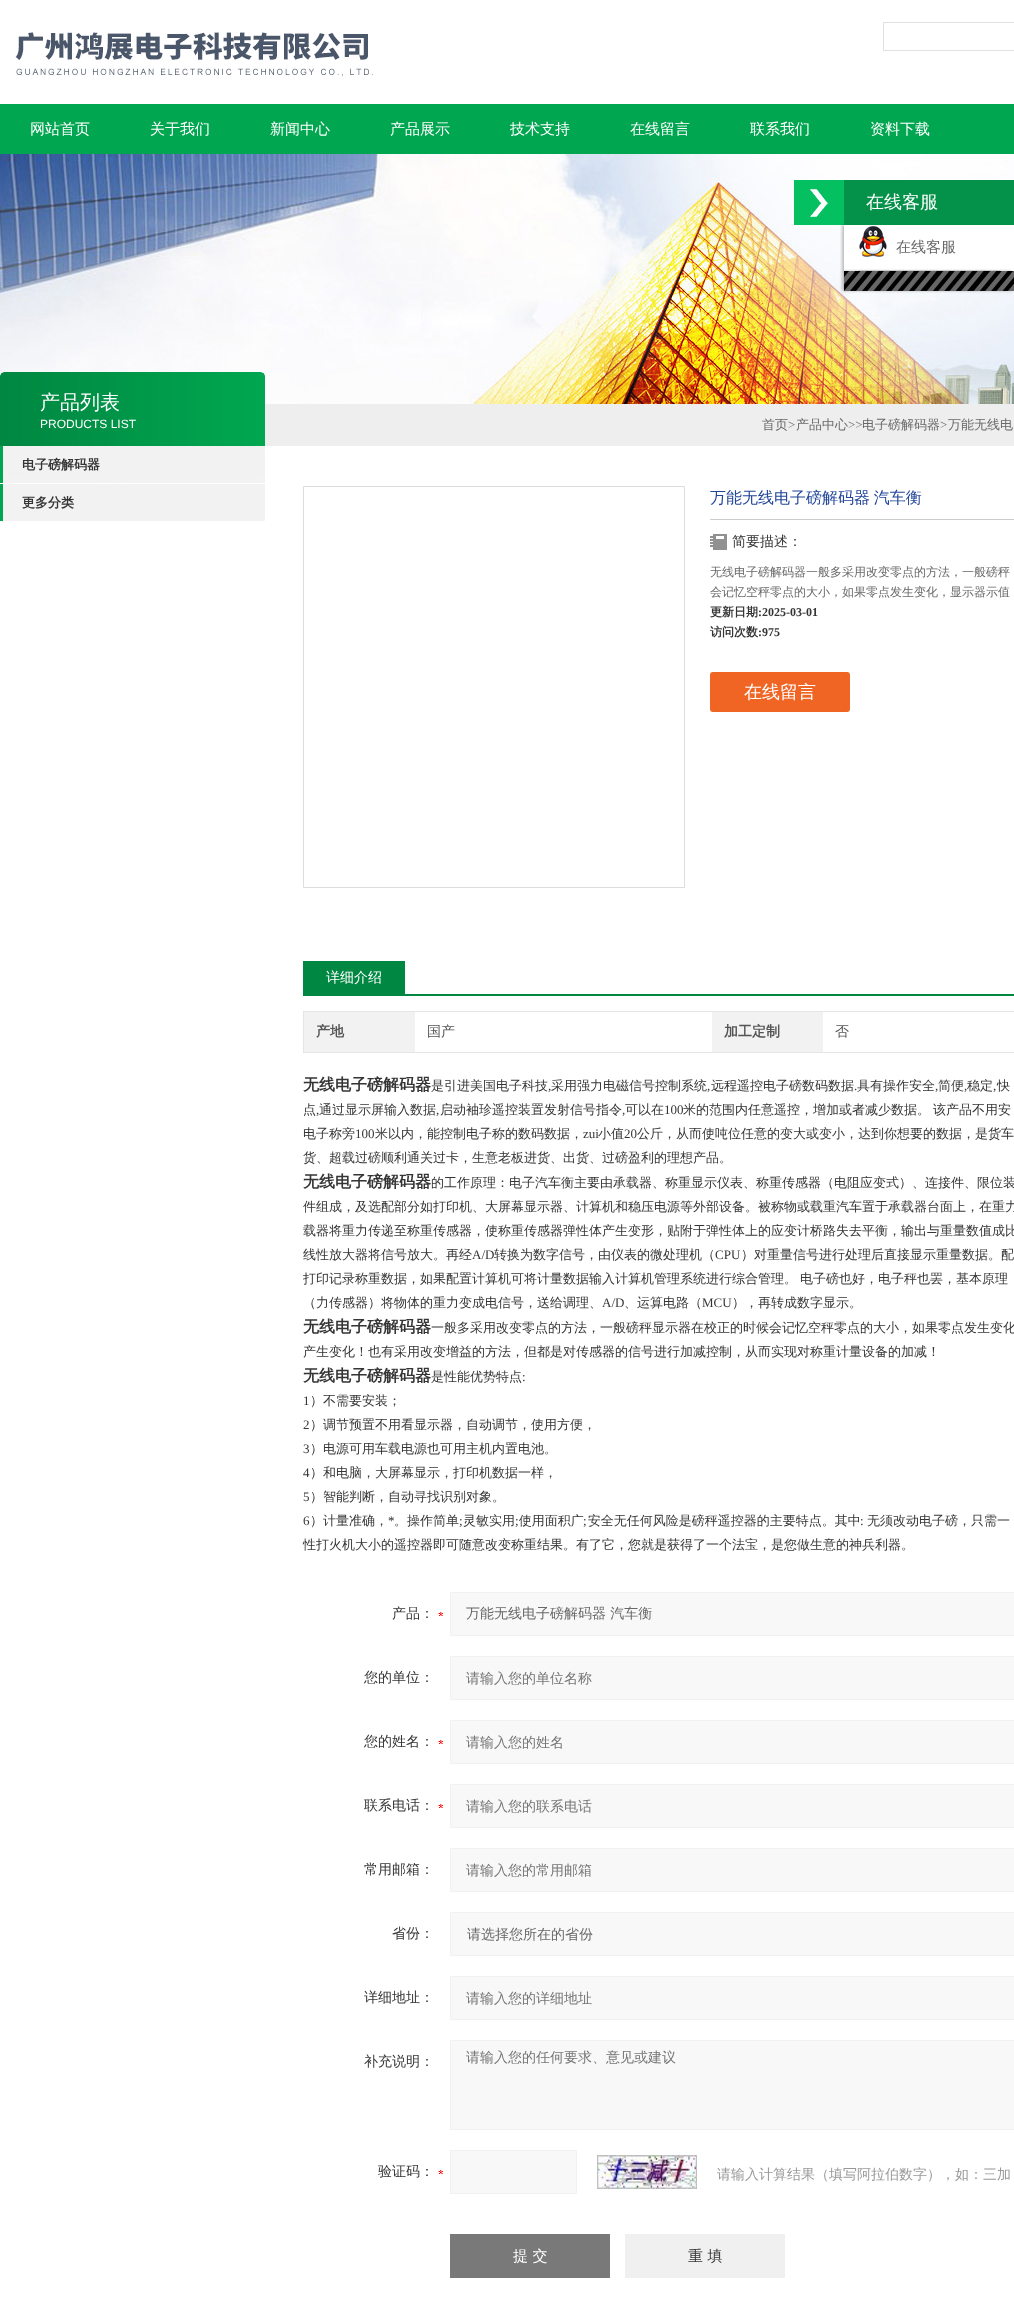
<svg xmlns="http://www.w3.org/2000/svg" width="1014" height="2305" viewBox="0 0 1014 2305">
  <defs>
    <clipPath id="clip1"><path d="M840 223h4v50H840z"/></clipPath>
  </defs>
  <rect width="100%" height="100%" fill="#fff"/>
  <path d="M265 404h749v42H265z" fill="#eee"/>
  <image x="15" y="32" width="358" height="45" href="img/1.png"/>
  <path d="M883 22h131v1H883z" fill="#e1e1e1"/>
  <path d="M883 50h131v1H883z" fill="#e1e1e1"/>
  <path d="M883 22h1v29H883z" fill="#e1e1e1"/>
  <path d="M0 104h1014v50H0z" fill="#00a650"/>
  <image x="0" y="154" width="1014" height="250" href="img/2.png"/>
  <image x="794" y="180" width="50" height="45" href="img/3.png"/>
  <path d="M844 225h170v46H844z" fill="#fff"/>
  <g clip-path="url(#clip1)">
    <path d="M842 225h170v46H842z" fill="#00000040" filter="blur(1.5px)"/>
  </g>
  <path d="M844 180h170v45H844z" fill="#049149"/>
  <path d="M858 270h142v1H858z" fill="#e3e3e3"/>
  <image x="859" y="226" width="29" height="33" href="img/4.png"/>
  <path d="M842 271h170v20H842z" fill="#00000040" filter="blur(1.5px)"/>
  <image x="844" y="271" width="170" height="20" href="img/5.png"/>
  <image x="0" y="372" width="265" height="74" href="img/6.png"/>
  <image x="0" y="446" width="265" height="37" href="img/7.png"/>
  <image x="0" y="484" width="265" height="37" href="img/7.png"/>
  <path d="M303.5 486.5h381v401H303.5z" fill="none" stroke="#ddd"/>
  <path d="M710 519h304v1H710z" fill="#ccc"/>
  <image x="710" y="534" width="17" height="16" href="img/8.png"/>
  <rect x="710" y="672" width="140" height="40" rx="3" fill="#f06524"/>
  <path d="M303 994h711v2H303z" fill="#008742"/>
  <path d="M303 961h102v33H303z" fill="#008742"/>
  <path d="M303 1011h711v1H303z" fill="#e6e5e5"/>
  <path d="M303 1011h1v42H303z" fill="#e6e5e5"/>
  <path d="M304 1012h111v40H304z" fill="#f2f2f2"/>
  <path d="M712 1012h111v40H712z" fill="#f2f2f2"/>
  <path d="M303 1052h711v1H303z" fill="#e6e5e5"/>
  <image x="438" y="1612" width="5" height="4" href="img/9.png"/>
  <path d="M450.5 1592.5h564v43H450.5z" fill="#f8f8f8" stroke="#f1f1f1"/>
  <path d="M450.5 1656.5h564v43H450.5z" fill="#f8f8f8" stroke="#f1f1f1"/>
  <image x="438" y="1740" width="5" height="4" href="img/9.png"/>
  <path d="M450.5 1720.5h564v43H450.5z" fill="#f8f8f8" stroke="#f1f1f1"/>
  <image x="438" y="1804" width="5" height="4" href="img/9.png"/>
  <path d="M450.5 1784.5h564v43H450.5z" fill="#f8f8f8" stroke="#f1f1f1"/>
  <path d="M450.5 1848.5h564v43H450.5z" fill="#f8f8f8" stroke="#f1f1f1"/>
  <path d="M450.5 1912.5h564v43H450.5z" fill="#f8f8f8" stroke="#f1f1f1"/>
  <path d="M450.5 1976.5h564v43H450.5z" fill="#f8f8f8" stroke="#f1f1f1"/>
  <path d="M450.5 2040.5h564v89H450.5z" fill="#f8f8f8" stroke="#f1f1f1"/>
  <image x="438" y="2170" width="5" height="4" href="img/9.png"/>
  <path d="M450.5 2150.5h126v43H450.5z" fill="#f8f8f8" stroke="#f1f1f1"/>
  <image x="597" y="2155" width="100" height="34" href="img/10.png"/>
  <path d="M450 2234h160v44H450z" fill="#797979"/>
  <path d="M625 2234h160v44H625z" fill="#f0f0f0"/>
  <g font-family="WenQuanYi Zen Hei" font-size="15" font-weight="500" fill="#fff">
    <text x="30" y="134">网站首页</text>
    <text x="150" y="134">关于我们</text>
    <text x="270" y="134">新闻中心</text>
    <text x="390" y="134">产品展示</text>
    <text x="510" y="134">技术支持</text>
    <text x="630" y="134">在线留言</text>
    <text x="750" y="134">联系我们</text>
    <text x="870" y="134">资料下载</text>
  </g>
  <text x="866" y="208" font-family="WenQuanYi Zen Hei" font-size="18" font-weight="500" fill="#fff">在线客服</text>
  <text x="896" y="252" font-family="WenQuanYi Zen Hei" font-size="15" font-weight="500" fill="#686868">在线客服</text>
  <text x="40" y="409" font-family="WenQuanYi Zen Hei" font-size="20" font-weight="500" fill="#fff">产品列表</text>
  <text x="40" y="428" font-family="Liberation Sans" font-size="12" fill="#fff">PRODUCTS LIST</text>
  <g font-family="WenQuanYi Zen Hei" font-size="13" font-weight="bold" fill="#353535">
    <text x="22" y="469">电子磅解码器</text>
    <text x="22" y="507">更多分类</text>
  </g>
  <text x="762" y="429" font-family="WenQuanYi Zen Hei" font-size="13" font-weight="500" fill="#686868">首页</text>
  <text x="788" y="429" font-family="Liberation Serif" font-size="13" fill="#686868">&gt;</text>
  <text x="796" y="429" font-family="WenQuanYi Zen Hei" font-size="13" font-weight="500" fill="#686868">产品中心</text>
  <text x="848" y="429" font-family="Liberation Serif" font-size="13" fill="#686868">&gt;&gt;</text>
  <text x="862" y="429" font-family="WenQuanYi Zen Hei" font-size="13" font-weight="500" fill="#686868">电子磅解码器</text>
  <text x="940" y="429" font-family="Liberation Serif" font-size="13" fill="#686868">&gt;</text>
  <text x="948" y="429" word-spacing="-1" font-family="WenQuanYi Zen Hei" font-size="13" font-weight="500" fill="#686868">万能无线电</text>
  <text x="710" y="503" word-spacing="-1" font-family="WenQuanYi Zen Hei" font-size="16" font-weight="500" fill="#22469a">万能无线电子磅解码器 汽车衡</text>
  <text x="732" y="546" font-family="WenQuanYi Zen Hei" font-size="14" font-weight="500" fill="#353535">简要描述：</text>
  <g font-family="WenQuanYi Zen Hei" font-size="12" font-weight="500" fill="#686868">
    <text x="710" y="576">无线电子磅解码器一般多采用改变零点的方法，一般磅秤</text>
    <text x="710" y="596">会记忆空秤零点的大小，如果零点发生变化，显示器示值</text>
  </g>
  <text x="710" y="616" font-family="WenQuanYi Zen Hei" font-size="12" font-weight="bold" fill="#353535">更新日期</text>
  <text x="758" y="616" font-family="Liberation Serif" font-size="12" font-weight="bold" fill="#353535">:2025-03-01</text>
  <text x="710" y="636" font-family="WenQuanYi Zen Hei" font-size="12" font-weight="bold" fill="#353535">访问次数</text>
  <text x="758" y="636" font-family="Liberation Serif" font-size="12" font-weight="bold" fill="#353535">:975</text>
  <text x="744" y="698" font-family="WenQuanYi Zen Hei" font-size="18" font-weight="500" fill="#fff">在线留言</text>
  <text x="326" y="982" font-family="WenQuanYi Zen Hei" font-size="14" font-weight="500" fill="#fff">详细介绍</text>
  <text x="316" y="1036" font-family="WenQuanYi Zen Hei" font-size="14" font-weight="bold" fill="#555">产地</text>
  <text x="427" y="1036" font-family="WenQuanYi Zen Hei" font-size="14" font-weight="500" fill="#555">国产</text>
  <text x="724" y="1036" font-family="WenQuanYi Zen Hei" font-size="14" font-weight="bold" fill="#555">加工定制</text>
  <text x="835" y="1036" font-family="WenQuanYi Zen Hei" font-size="14" font-weight="500" fill="#555">否</text>
  <text x="303" y="1090" font-family="WenQuanYi Zen Hei" font-size="16" font-weight="bold" fill="#353535">无线电子磅解码器</text>
  <text x="431" y="1090" font-family="WenQuanYi Zen Hei" font-size="13" font-weight="500" fill="#353535">是引进美国电子科技</text>
  <text x="548" y="1090" font-family="Liberation Serif" font-size="13" fill="#353535">,</text>
  <text x="551" y="1090" font-family="WenQuanYi Zen Hei" font-size="13" font-weight="500" fill="#353535">采用强力电磁信号控制系统</text>
  <text x="707" y="1090" font-family="Liberation Serif" font-size="13" fill="#353535">,</text>
  <text x="711" y="1090" font-family="WenQuanYi Zen Hei" font-size="13" font-weight="500" fill="#353535">远程遥控电子磅数码数据</text>
  <text x="854" y="1090" font-family="Liberation Serif" font-size="13" fill="#353535">.</text>
  <text x="857" y="1090" font-family="WenQuanYi Zen Hei" font-size="13" font-weight="500" fill="#353535">具有操作安全</text>
  <text x="935" y="1090" font-family="Liberation Serif" font-size="13" fill="#353535">,</text>
  <text x="938" y="1090" font-family="WenQuanYi Zen Hei" font-size="13" font-weight="500" fill="#353535">简便</text>
  <text x="964" y="1090" font-family="Liberation Serif" font-size="13" fill="#353535">,</text>
  <text x="967" y="1090" font-family="WenQuanYi Zen Hei" font-size="13" font-weight="500" fill="#353535">稳定</text>
  <text x="993" y="1090" font-family="Liberation Serif" font-size="13" fill="#353535">,</text>
  <g font-family="WenQuanYi Zen Hei" font-size="13" font-weight="500" fill="#353535">
    <text x="997" y="1090">快</text>
    <text x="303" y="1114">点</text>
  </g>
  <text x="316" y="1114" font-family="Liberation Serif" font-size="13" fill="#353535">,</text>
  <text x="319" y="1114" font-family="WenQuanYi Zen Hei" font-size="13" font-weight="500" fill="#353535">通过显示屏输入数据</text>
  <text x="436" y="1114" font-family="Liberation Serif" font-size="13" fill="#353535">,</text>
  <text x="440" y="1114" font-family="WenQuanYi Zen Hei" font-size="13" font-weight="500" fill="#353535">启动袖珍遥控装置发射信号指令</text>
  <text x="622" y="1114" font-family="Liberation Serif" font-size="13" fill="#353535">,</text>
  <text x="625" y="1114" font-family="WenQuanYi Zen Hei" font-size="13" font-weight="500" fill="#353535">可以在</text>
  <text x="664" y="1114" font-family="Liberation Serif" font-size="13" fill="#353535">100</text>
  <g font-family="WenQuanYi Zen Hei" font-size="13" font-weight="500" fill="#353535">
    <text x="683" y="1114" word-spacing="-1">米的范围内任意遥控，增加或者减少数据。 该产品不用安</text>
    <text x="303" y="1138">电子称旁</text>
  </g>
  <text x="355" y="1138" font-family="Liberation Serif" font-size="13" fill="#353535">100</text>
  <text x="375" y="1138" font-family="WenQuanYi Zen Hei" font-size="13" font-weight="500" fill="#353535">米以内，能控制电子称的数码数据，</text>
  <text x="583" y="1138" font-family="Liberation Serif" font-size="13" fill="#353535">zui</text>
  <text x="598" y="1138" font-family="WenQuanYi Zen Hei" font-size="13" font-weight="500" fill="#353535">小值</text>
  <text x="624" y="1138" font-family="Liberation Serif" font-size="13" fill="#353535">20</text>
  <g font-family="WenQuanYi Zen Hei" font-size="13" font-weight="500" fill="#353535">
    <text x="637" y="1138">公斤，从而使吨位任意的变大或变小，达到你想要的数据，是货车</text>
    <text x="303" y="1162">货、超载过磅顺利通关过卡，生意老板进货、出货、过磅盈利的理想产品。</text>
  </g>
  <text x="303" y="1187" font-family="WenQuanYi Zen Hei" font-size="16" font-weight="bold" fill="#353535">无线电子磅解码器</text>
  <g font-family="WenQuanYi Zen Hei" font-size="13" font-weight="500" fill="#353535">
    <text x="431" y="1187">的工作原理：电子汽车衡主要由承载器、称重显示仪表、称重传感器（电阻应变式）、连接件、限位装</text>
    <text x="303" y="1211">件组成，及选配部分如打印机、大屏幕显示器、计算机和稳压电源等外部设备。被称物或载重汽车置于承载器台面上，在重力</text>
    <text x="303" y="1235">载器将重力传递至称重传感器，使称重传感器弹性体产生变形，贴附于弹性体上的应变计桥路失去平衡，输出与重量数值成比</text>
    <text x="303" y="1259">线性放大器将信号放大。再经</text>
  </g>
  <text x="472" y="1259" font-family="Liberation Serif" font-size="13" fill="#353535">A/D</text>
  <text x="494" y="1259" font-family="WenQuanYi Zen Hei" font-size="13" font-weight="500" fill="#353535">转换为数字信号，由仪表的微处理机（</text>
  <text x="715" y="1259" font-family="Liberation Serif" font-size="13" fill="#353535">CPU</text>
  <g font-family="WenQuanYi Zen Hei" font-size="13" font-weight="500" fill="#353535">
    <text x="741" y="1259">）对重量信号进行处理后直接显示重量数据。配</text>
    <text x="303" y="1283" word-spacing="-1">打印记录称重数据，如果配置计算机可将计量数据输入计算机管理系统进行综合管理。 电子磅也好，电子秤也罢，基本原理</text>
    <text x="303" y="1307">（力传感器）将物体的重力变成电信号，送给调理、</text>
  </g>
  <text x="602" y="1307" font-family="Liberation Serif" font-size="13" fill="#353535">A/D</text>
  <text x="624" y="1307" font-family="WenQuanYi Zen Hei" font-size="13" font-weight="500" fill="#353535">、运算电路（</text>
  <text x="702" y="1307" font-family="Liberation Serif" font-size="13" fill="#353535">MCU</text>
  <text x="732" y="1307" font-family="WenQuanYi Zen Hei" font-size="13" font-weight="500" fill="#353535">），再转成数字显示。</text>
  <text x="303" y="1332" font-family="WenQuanYi Zen Hei" font-size="16" font-weight="bold" fill="#353535">无线电子磅解码器</text>
  <g font-family="WenQuanYi Zen Hei" font-size="13" font-weight="500" fill="#353535">
    <text x="431" y="1332">一般多采用改变零点的方法，一般磅秤显示器在校正的时候会记忆空秤零点的大小，如果零点发生变化</text>
    <text x="303" y="1356">产生变化！也有采用改变增益的方法，但都是对传感器的信号进行加减控制，从而实现对称重计量设备的加减！</text>
  </g>
  <text x="303" y="1381" font-family="WenQuanYi Zen Hei" font-size="16" font-weight="bold" fill="#353535">无线电子磅解码器</text>
  <text x="431" y="1381" font-family="WenQuanYi Zen Hei" font-size="13" font-weight="500" fill="#353535">是性能优势特点</text>
  <g font-family="Liberation Serif" font-size="13" fill="#353535">
    <text x="522" y="1381">:</text>
    <text x="303" y="1405">1</text>
  </g>
  <text x="310" y="1405" font-family="WenQuanYi Zen Hei" font-size="13" font-weight="500" fill="#353535">）不需要安装；</text>
  <text x="303" y="1429" font-family="Liberation Serif" font-size="13" fill="#353535">2</text>
  <text x="310" y="1429" font-family="WenQuanYi Zen Hei" font-size="13" font-weight="500" fill="#353535">）调节预置不用看显示器，自动调节，使用方便，</text>
  <text x="303" y="1453" font-family="Liberation Serif" font-size="13" fill="#353535">3</text>
  <text x="310" y="1453" font-family="WenQuanYi Zen Hei" font-size="13" font-weight="500" fill="#353535">）电源可用车载电源也可用主机内置电池。</text>
  <text x="303" y="1477" font-family="Liberation Serif" font-size="13" fill="#353535">4</text>
  <text x="310" y="1477" font-family="WenQuanYi Zen Hei" font-size="13" font-weight="500" fill="#353535">）和电脑，大屏幕显示，打印机数据一样，</text>
  <text x="303" y="1501" font-family="Liberation Serif" font-size="13" fill="#353535">5</text>
  <text x="310" y="1501" font-family="WenQuanYi Zen Hei" font-size="13" font-weight="500" fill="#353535">）智能判断，自动寻找识别对象。</text>
  <text x="303" y="1525" font-family="Liberation Serif" font-size="13" fill="#353535">6</text>
  <text x="310" y="1525" font-family="WenQuanYi Zen Hei" font-size="13" font-weight="500" fill="#353535">）计量准确，</text>
  <text x="388" y="1525" font-family="Liberation Serif" font-size="13" fill="#353535">*</text>
  <g font-family="WenQuanYi Zen Hei" font-size="13" font-weight="500" fill="#353535">
    <text x="394" y="1525">。操作简单 灵敏实用 使用面积广 安全无任何风险是磅秤遥控器的主要特点。其中</text>
    <text x="867" y="1525">无须改动电子磅，只需一</text>
  </g>
  <g font-family="Liberation Serif" font-size="13" fill="#353535">
    <text x="459" y="1525">;</text>
    <text x="515" y="1525">;</text>
    <text x="583" y="1525">;</text>
    <text x="860" y="1525">:</text>
  </g>
  <text x="303" y="1549" font-family="WenQuanYi Zen Hei" font-size="13" font-weight="500" fill="#353535">性打火机大小的遥控器即可随意改变称重结果。有了它，您就是获得了一个法宝，是您做生意的神兵利器。</text>
  <text x="392" y="1618" font-family="WenQuanYi Zen Hei" font-size="14" font-weight="500" fill="#353535">产品：</text>
  <text x="466" y="1618" font-family="WenQuanYi Zen Hei" font-size="14" font-weight="500" fill="#686868">万能无线电子磅解码器 汽车衡</text>
  <text x="364" y="1682" font-family="WenQuanYi Zen Hei" font-size="14" font-weight="500" fill="#353535">您的单位：</text>
  <text x="466" y="1683" font-family="WenQuanYi Zen Hei" font-size="14" font-weight="500" fill="#757575">请输入您的单位名称</text>
  <text x="364" y="1746" font-family="WenQuanYi Zen Hei" font-size="14" font-weight="500" fill="#353535">您的姓名：</text>
  <text x="466" y="1747" font-family="WenQuanYi Zen Hei" font-size="14" font-weight="500" fill="#757575">请输入您的姓名</text>
  <text x="364" y="1810" font-family="WenQuanYi Zen Hei" font-size="14" font-weight="500" fill="#353535">联系电话：</text>
  <text x="466" y="1811" font-family="WenQuanYi Zen Hei" font-size="14" font-weight="500" fill="#757575">请输入您的联系电话</text>
  <text x="364" y="1874" font-family="WenQuanYi Zen Hei" font-size="14" font-weight="500" fill="#353535">常用邮箱：</text>
  <text x="466" y="1875" font-family="WenQuanYi Zen Hei" font-size="14" font-weight="500" fill="#757575">请输入您的常用邮箱</text>
  <text x="392" y="1938" font-family="WenQuanYi Zen Hei" font-size="14" font-weight="500" fill="#353535">省份：</text>
  <text x="467" y="1939" font-family="WenQuanYi Zen Hei" font-size="14" font-weight="500" fill="#686868">请选择您所在的省份</text>
  <text x="364" y="2002" font-family="WenQuanYi Zen Hei" font-size="14" font-weight="500" fill="#353535">详细地址：</text>
  <text x="466" y="2003" font-family="WenQuanYi Zen Hei" font-size="14" font-weight="500" fill="#757575">请输入您的详细地址</text>
  <text x="364" y="2066" font-family="WenQuanYi Zen Hei" font-size="14" font-weight="500" fill="#353535">补充说明：</text>
  <text x="466" y="2062" font-family="WenQuanYi Zen Hei" font-size="14" font-weight="500" fill="#757575">请输入您的任何要求、意见或建议</text>
  <text x="378" y="2176" font-family="WenQuanYi Zen Hei" font-size="14" font-weight="500" fill="#353535">验证码：</text>
  <text x="717" y="2179" font-family="WenQuanYi Zen Hei" font-size="14" font-weight="500" fill="#999">请输入计算结果（填写阿拉伯数字），如：三加</text>
  <text x="513" y="2261" font-family="WenQuanYi Zen Hei" font-size="15" font-weight="500" fill="#fff">提 交</text>
  <text x="688" y="2261" font-family="WenQuanYi Zen Hei" font-size="15" font-weight="500" fill="#353535">重 填</text>
</svg>
